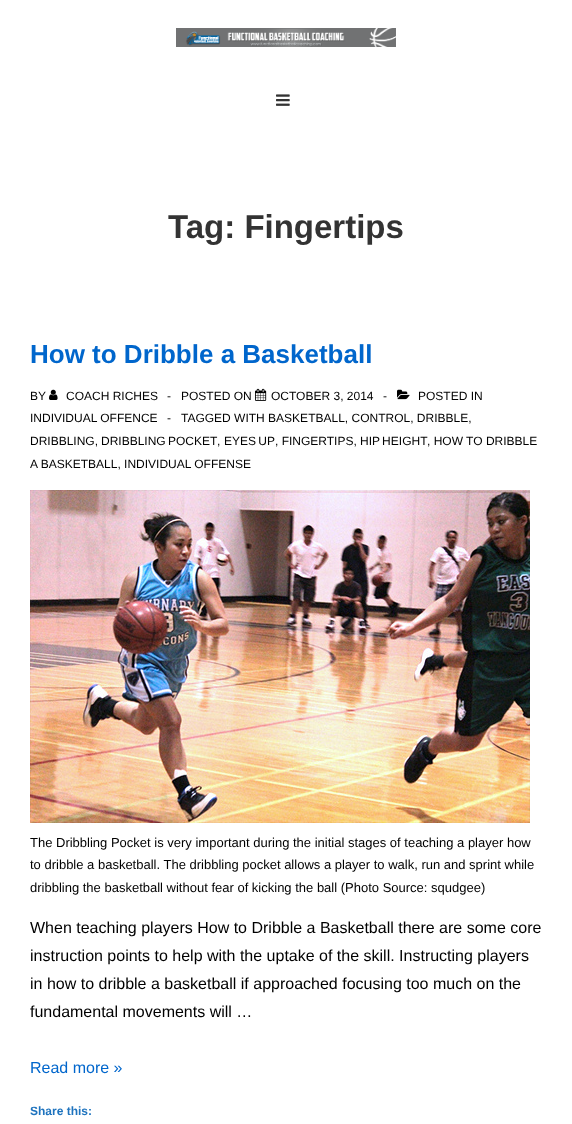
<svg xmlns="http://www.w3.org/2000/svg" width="572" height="1124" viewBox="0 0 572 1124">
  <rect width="100%" height="100%" fill="#fff"/>
  <image x="176" y="28" width="220" height="19" href="img/1.png"/>
  <image x="276" y="94" width="14" height="12" href="img/2.png"/>
  <image x="49" y="389" width="9" height="11" href="img/3.png"/>
  <image x="255" y="388" width="12" height="13" href="img/4.png"/>
  <image x="397" y="389" width="13" height="11" href="img/5.png"/>
  <image x="30" y="490" width="500" height="333" href="img/6.png"/>
  <text x="168" y="238" font-family="Liberation Sans" font-size="33" font-weight="bold" fill="#333">Tag: Fingertips</text>
  <text x="30" y="363" font-family="Liberation Sans" font-size="26" font-weight="bold" fill="#06c">How to Dribble a Basketball</text>
  <g font-family="Liberation Sans" font-size="12" fill="#000">
    <text x="30" y="400">BY</text>
    <text x="66" y="400">COACH RICHES</text>
    <text x="167" y="400">-</text>
    <text x="181" y="400">POSTED ON</text>
    <text x="271" y="400">OCTOBER 3, 2014</text>
    <text x="383" y="400">-</text>
    <text x="418" y="400">POSTED IN</text>
    <text x="30" y="422">INDIVIDUAL OFFENCE</text>
    <text x="167" y="422">-</text>
    <text x="181" y="422">TAGGED WITH BASKETBALL, CONTROL, DRIBBLE,</text>
    <text x="30" y="445">DRIBBLING,</text>
    <text x="101" y="445" word-spacing="-1">DRIBBLING POCKET</text>
    <text x="217" y="445">,</text>
    <text x="224" y="445" word-spacing="-1">EYES UP</text>
    <text x="275" y="445">, FINGERTIPS,</text>
    <text x="360" y="445" word-spacing="-1">HIP HEIGHT</text>
    <text x="427" y="445">, HOW TO DRIBBLE</text>
    <text x="30" y="468">A BASKETBALL, INDIVIDUAL OFFENSE</text>
  </g>
  <g font-family="Liberation Sans" font-size="13" fill="#000">
    <text x="30" y="847">The Dribbling Pocket is very important during the initial stages of teaching a player how</text>
    <text x="30" y="869">to dribble a basketball. The dribbling pocket allows a player to walk, run and sprint while</text>
    <text x="30" y="892">dribbling the basketball without fear of kicking the ball (Photo Source: squdgee)</text>
  </g>
  <g font-family="Liberation Sans" font-size="16" fill="#000">
    <text x="30" y="933">When teaching players How to Dribble a Basketball there are some core</text>
    <text x="30" y="961">instruction points to help with the uptake of the skill. Instructing players</text>
    <text x="30" y="989">in how to dribble a basketball if approached focusing too much on the</text>
    <text x="30" y="1017">fundamental movements will …</text>
  </g>
  <text x="30" y="1073" font-family="Liberation Sans" font-size="16" fill="#06c">Read more »</text>
  <text x="30" y="1115" font-family="Liberation Sans" font-size="12" font-weight="bold" fill="#1e73be">Share this:</text>
</svg>
